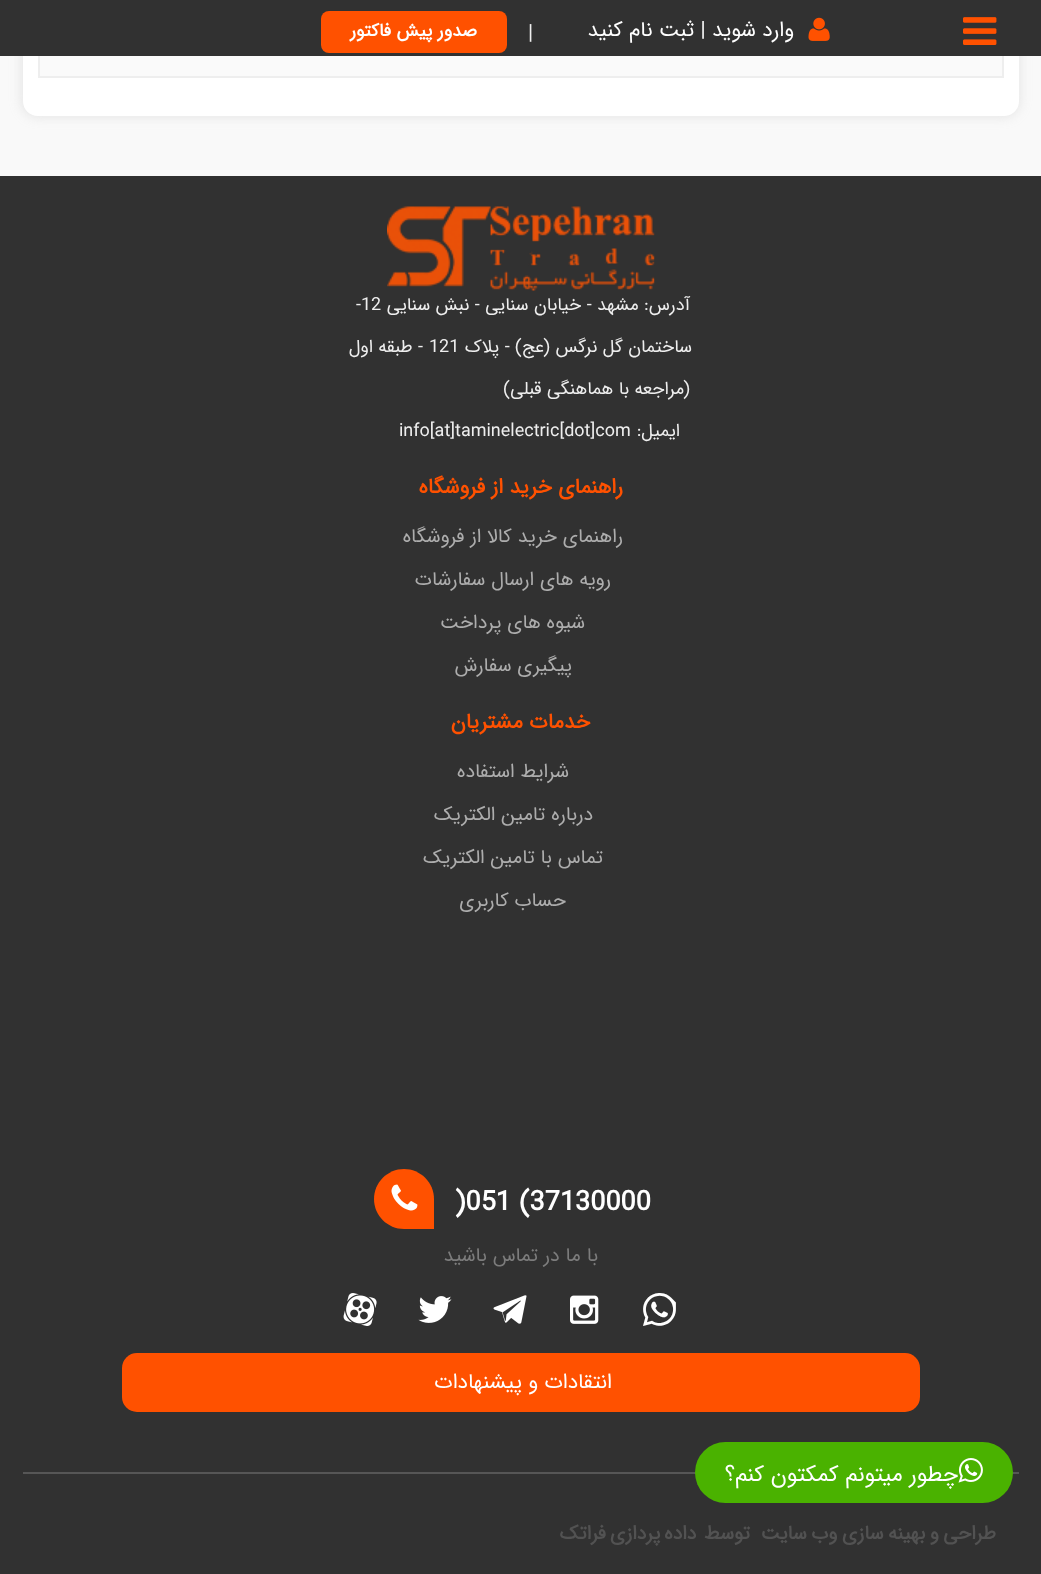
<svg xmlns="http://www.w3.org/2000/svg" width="1041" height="1574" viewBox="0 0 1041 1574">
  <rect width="100%" height="100%" fill="#f9f9f9"/>
  <rect x="21" y="-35" width="999" height="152" rx="17" fill="#b4b4b447" filter="blur(6px)"/>
  <path d="M23-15H1019V101C1019 109.5 1012.5 116 1004 116H38C29.5 116 23 109.5 23 101Z" fill="#fff"/>
  <path d="M40 56h962v20H40z" fill="#fafafa"/>
  <path d="M39 -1h964v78H39z" fill="none" stroke="#eee" stroke-width="2"/>
  <path d="M0 0h1041v56H0z" fill="#313131"/>
  <image x="963" y="17" width="34" height="28" href="img/1.png"/>
  <image x="808" y="17" width="22" height="24" href="img/2.png"/>
  <rect x="321" y="11" width="186" height="42" rx="8" fill="#ff5100"/>
  <path d="M0 176h1041v1398H0z" fill="#313131"/>
  <image x="387" y="206" width="268" height="85" href="img/3.png"/>
  <path d="M23 1472h996v2H23z" fill="#565656"/>
  <rect x="695" y="1442" width="318" height="61" rx="30.5" fill="#4ab200"/>
  <image x="958" y="1458" width="25" height="25" href="img/4.png"/>
  <path d="M404 1169C420.5 1169 434 1182.5 434 1199V1229H404C387.5 1229 374 1215.5 374 1199C374 1182.5 387.5 1169 404 1169Z" fill="#ff5100"/>
  <image x="391" y="1184" width="27" height="27" href="img/5.png"/>
  <image x="570" y="1295" width="29" height="29" href="img/6.png"/>
  <image x="493" y="1295" width="34" height="29" href="img/7.png"/>
  <image x="418" y="1296" width="34" height="27" href="img/8.png"/>
  <image x="343" y="1293" width="34" height="33" href="img/9.png"/>
  <rect x="122" y="1353" width="798" height="59" rx="15" fill="#ff5100"/>
  <text x="794" y="36" font-family="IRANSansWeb" font-size="21" direction="rtl" fill="#fff">وارد شوید | ثبت نام کنید</text>
  <text x="528" y="39" font-family="IRANSansWeb" font-size="21" fill="#eee">|</text>
  <text x="477" y="36" font-family="IRANSansWeb" font-size="18" font-weight="bold" direction="rtl" fill="#fff">صدور پیش فاکتور</text>
  <text x="690" y="310" font-family="IRANSansWeb" font-size="18" direction="rtl" fill="#eee">آدرس: مشهد - خیابان سنایی - نبش سنایی</text>
  <text x="356" y="310" font-family="IRANSansWeb" font-size="18" fill="#eee">-12</text>
  <text x="692" y="352" font-family="IRANSansWeb" font-size="18" direction="rtl" fill="#eee">ساختمان گل نرگس (عج) - پلاک</text>
  <text x="429" y="352" font-family="IRANSansWeb" font-size="18" fill="#eee">121</text>
  <g font-family="IRANSansWeb" font-size="18" direction="rtl" fill="#eee">
    <text x="423" y="352">- طبقه اول</text>
    <text x="690" y="394">(مراجعه با هماهنگی قبلی)</text>
    <text x="680" y="436">ایمیل:</text>
  </g>
  <text x="399" y="436" font-family="IRANSansWeb" font-size="18" fill="#eee">info[at]taminelectric[dot]com</text>
  <text x="958" y="1481" font-family="IRANSansWeb" font-size="22.5" direction="rtl" fill="#fff">چطور میتونم کمکتون کنم؟</text>
  <text x="623" y="493" font-family="IRANSansWeb" font-size="21" font-weight="bold" direction="rtl" fill="#ff5100">راهنمای خرید از فروشگاه</text>
  <g font-family="IRANSansWeb" font-size="19.5" direction="rtl" fill="#adadad">
    <text x="623" y="542">راهنمای خرید کالا از فروشگاه</text>
    <text x="611" y="585">رویه های ارسال سفارشات</text>
    <text x="585" y="628">شیوه های پرداخت</text>
    <text x="572" y="671">پیگیری سفارش</text>
  </g>
  <text x="590" y="728" font-family="IRANSansWeb" font-size="21" font-weight="bold" direction="rtl" fill="#ff5100">خدمات مشتریان</text>
  <g font-family="IRANSansWeb" font-size="19.5" direction="rtl" fill="#adadad">
    <text x="569" y="777">شرایط استفاده</text>
    <text x="593" y="820">درباره تامین الکتریک</text>
    <text x="603" y="863">تماس با تامین الکتریک</text>
    <text x="566" y="906">حساب کاربری</text>
  </g>
  <text x="455" y="1210" font-family="IRANSansWeb" font-size="27" font-weight="bold" fill="#fff">)051 (37130000</text>
  <text x="598" y="1261" font-family="IRANSansWeb" font-size="19.5" direction="rtl" fill="#7c7c7c">با ما در تماس باشید</text>
  <text x="643" y="1326" font-family="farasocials" font-size="33" fill="#fff">0</text>
  <text x="612" y="1388" font-family="IRANSansWeb" font-size="21" direction="rtl" fill="#fff">انتقادات و پیشنهادات</text>
  <g font-family="IRANSansWeb" font-size="19.5" font-weight="bold" direction="rtl" fill="#525252">
    <text x="996" y="1539" word-spacing="-1.5">طراحی و بهینه سازی وب سایت</text>
    <text x="750" y="1539" word-spacing="-2" xml:space="preserve">توسط  داده پردازی فراتک</text>
  </g>
</svg>
